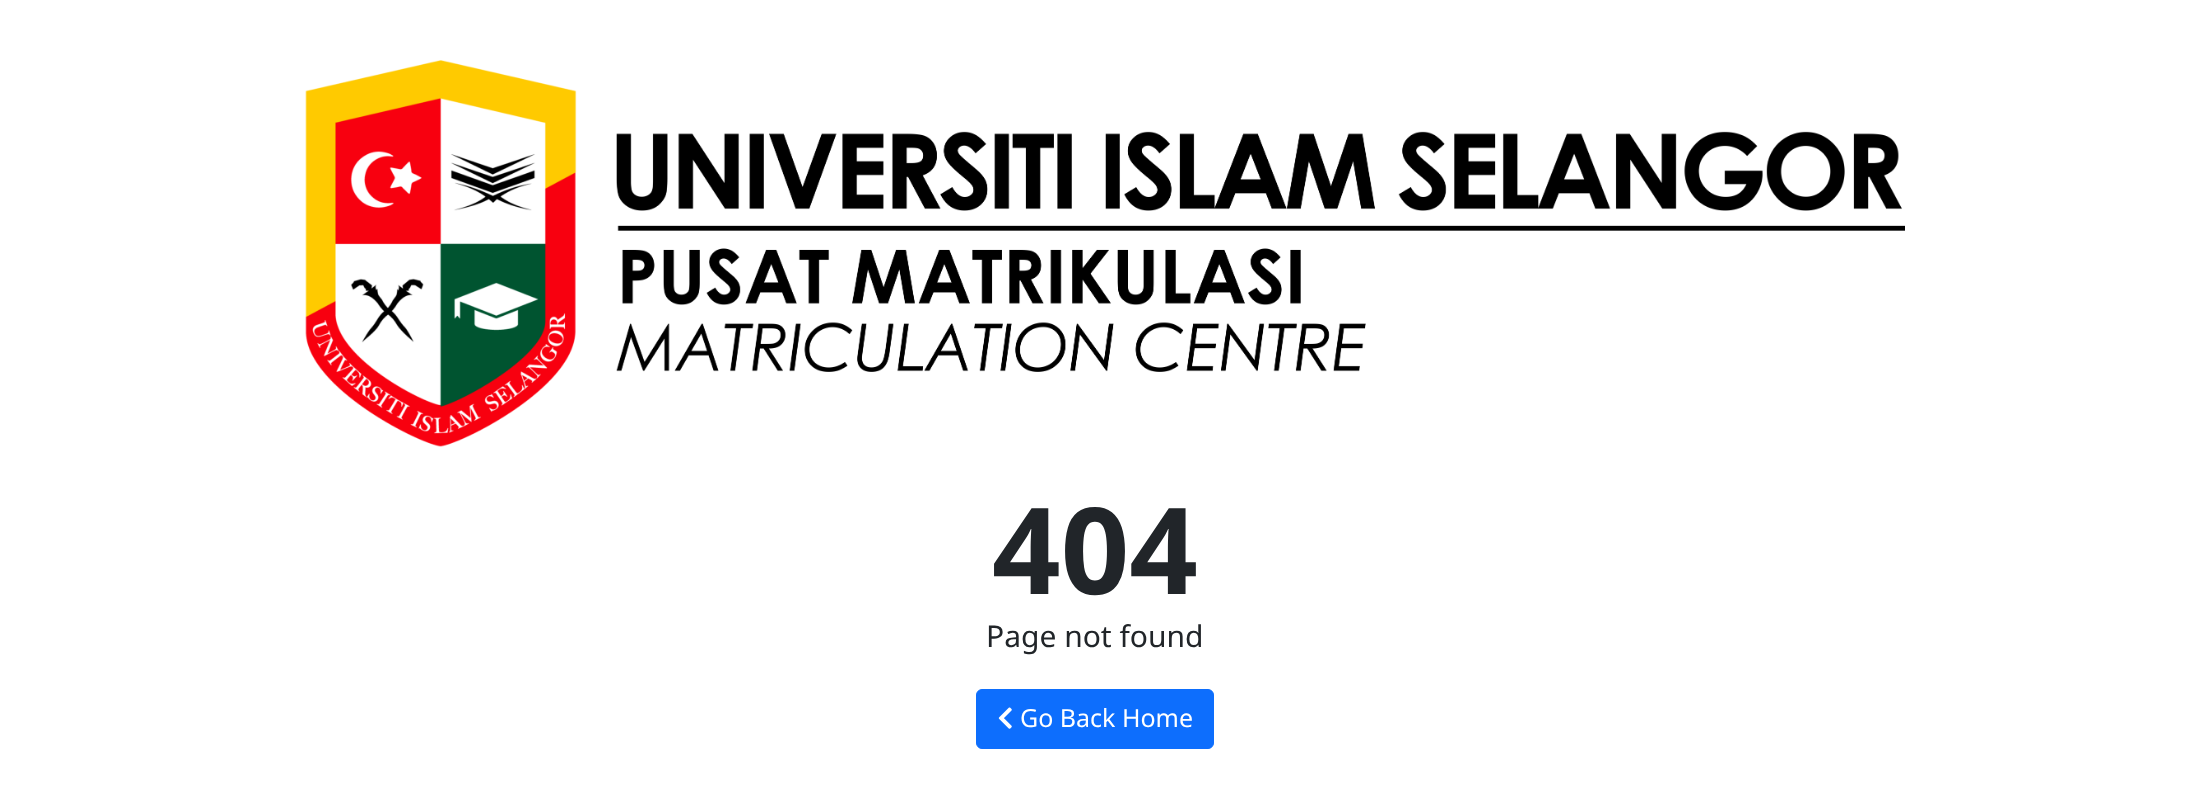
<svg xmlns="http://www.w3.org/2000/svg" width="2190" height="803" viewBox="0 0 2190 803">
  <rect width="100%" height="100%" fill="#fff"/>
  <image x="305" y="60" width="1600" height="387" href="img/1.png"/>
  <rect x="976.5" y="689.5" width="237" height="59" rx="5.5" fill="#0d6efd" stroke="#0d6efd"/>
  <image x="998" y="707" width="14" height="22" href="img/2.png"/>
  <text x="992" y="594" font-family="Noto Sans" font-size="120" font-weight="bold" fill="#212529">404</text>
  <text x="986" y="647" font-family="Noto Sans" font-size="30" fill="#212529">Page not found</text>
  <text x="1020" y="727" font-family="Noto Sans" font-size="25" fill="#fff">Go Back Home</text>
</svg>
